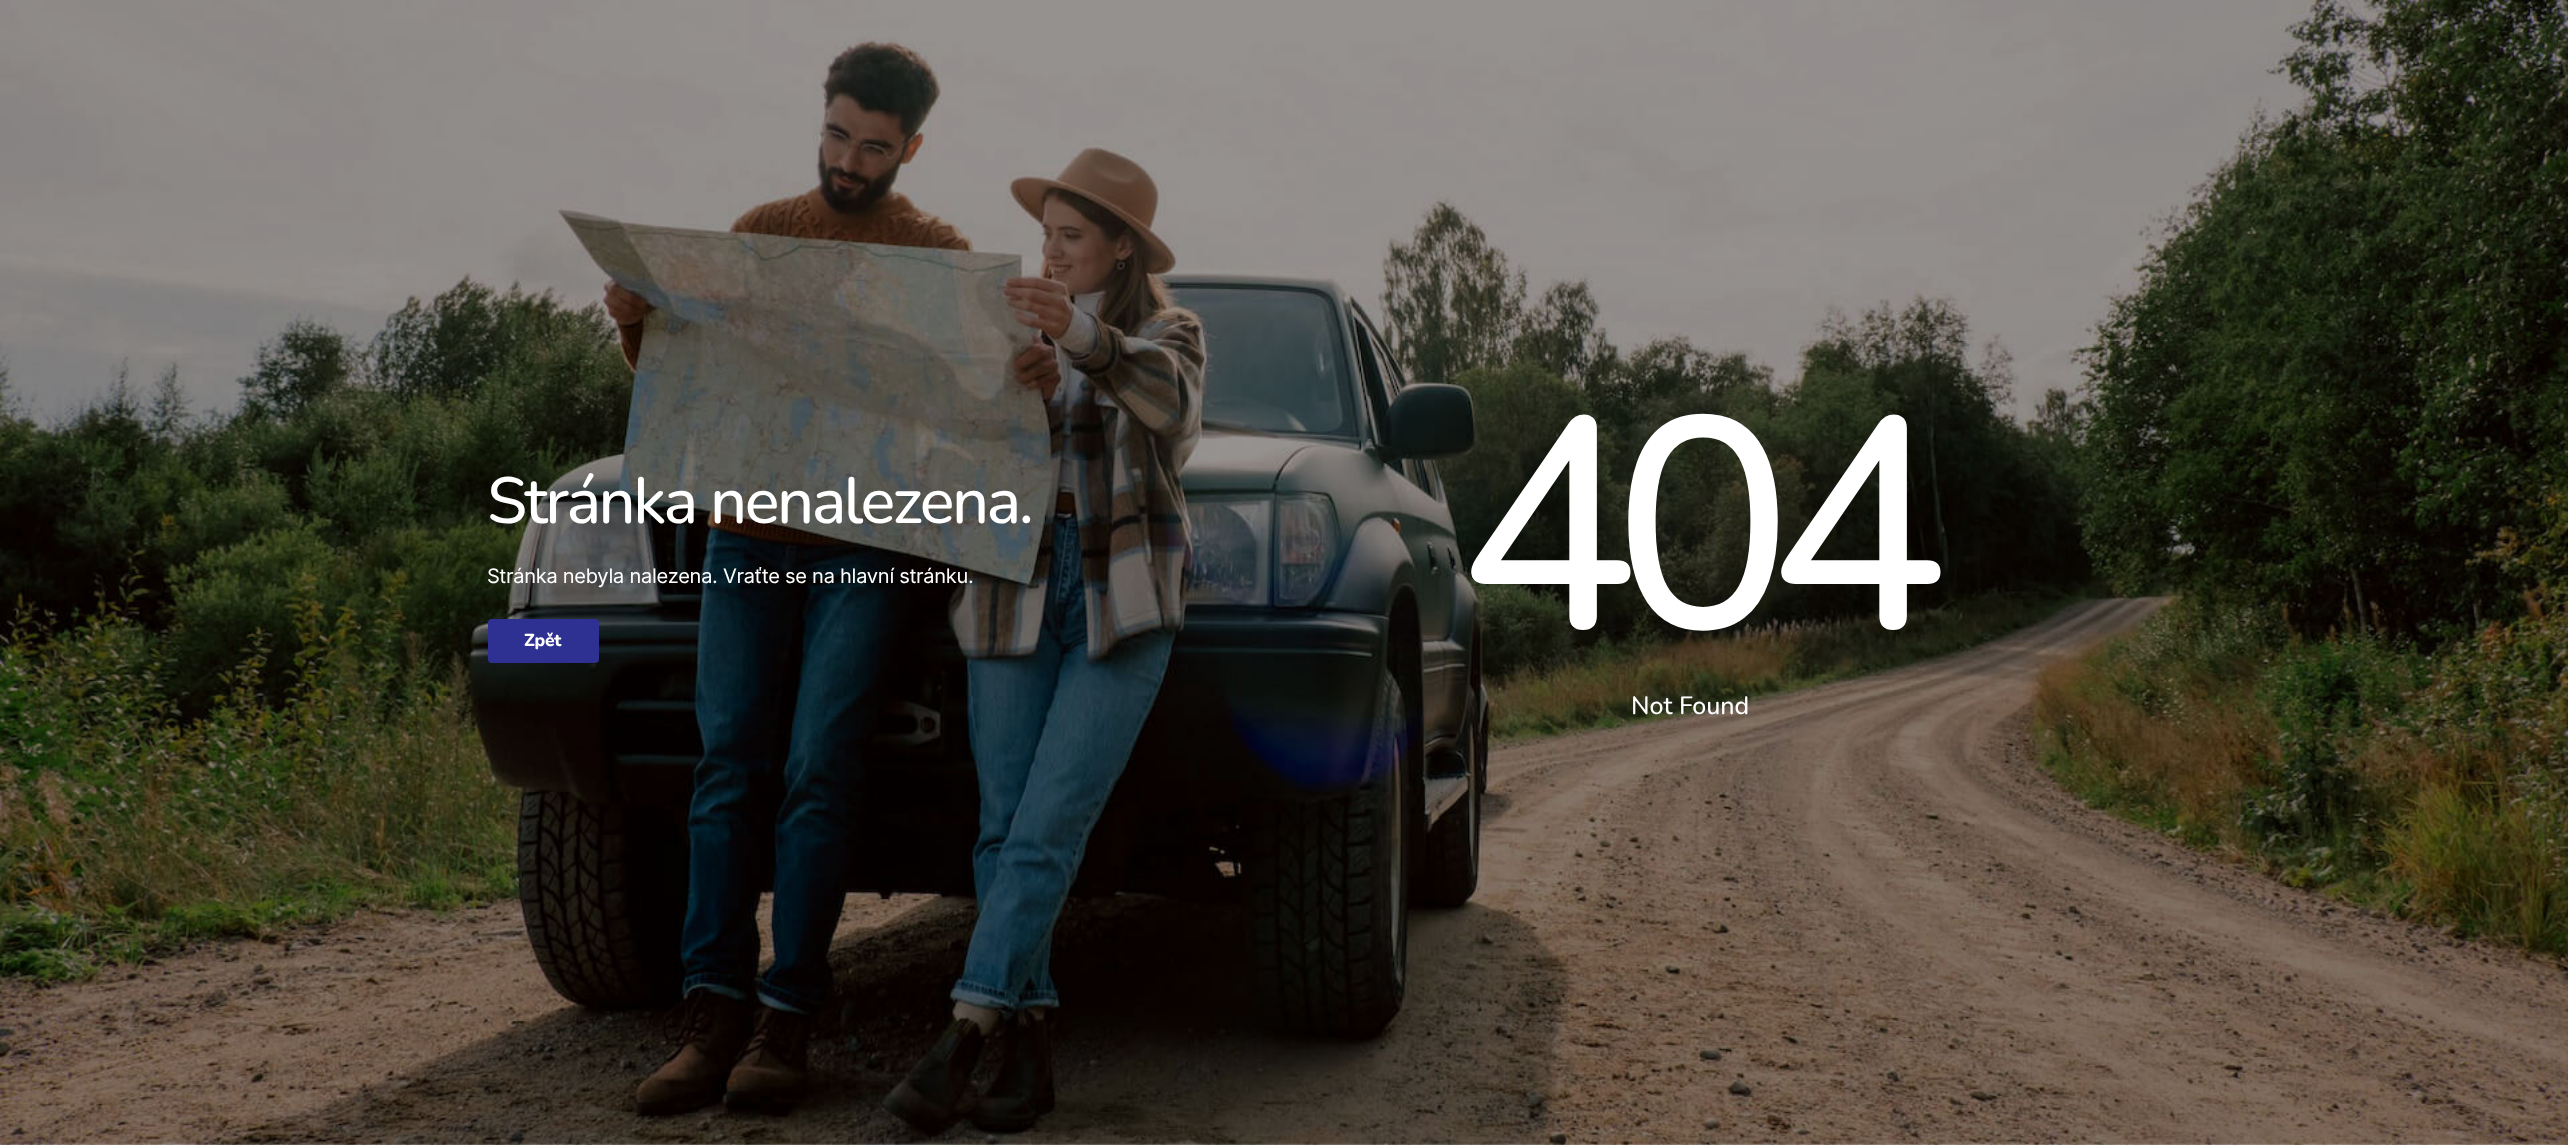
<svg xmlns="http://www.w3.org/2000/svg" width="2568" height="1145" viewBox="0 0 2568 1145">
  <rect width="100%" height="100%" fill="#fff"/>
  <image x="0" y="0" width="2568" height="1145" href="img/1.png"/>
  <rect x="488" y="619" width="111" height="44" rx="4" fill="#2e3192"/>
  <text x="487" y="523" font-family="Nunito" font-size="65" font-weight="500" letter-spacing="-2.5" fill="#fff">Stránka nenalezena.</text>
  <text x="487" y="583" font-family="Inter" font-size="20" letter-spacing="-0.25" fill="#fff">Stránka nebyla nalezena. Vraťte se na hlavní stránku.</text>
  <text x="524" y="646" font-family="Nunito" font-size="17.5" font-weight="800" letter-spacing="-0.25" fill="#fff">Zpět</text>
  <text x="1458" y="628" font-family="Nunito" font-size="300" font-weight="500" letter-spacing="-25" fill="#fff">404</text>
  <text x="1631" y="714" font-family="Nunito" font-size="25" font-weight="500" fill="#fff">Not Found</text>
</svg>
